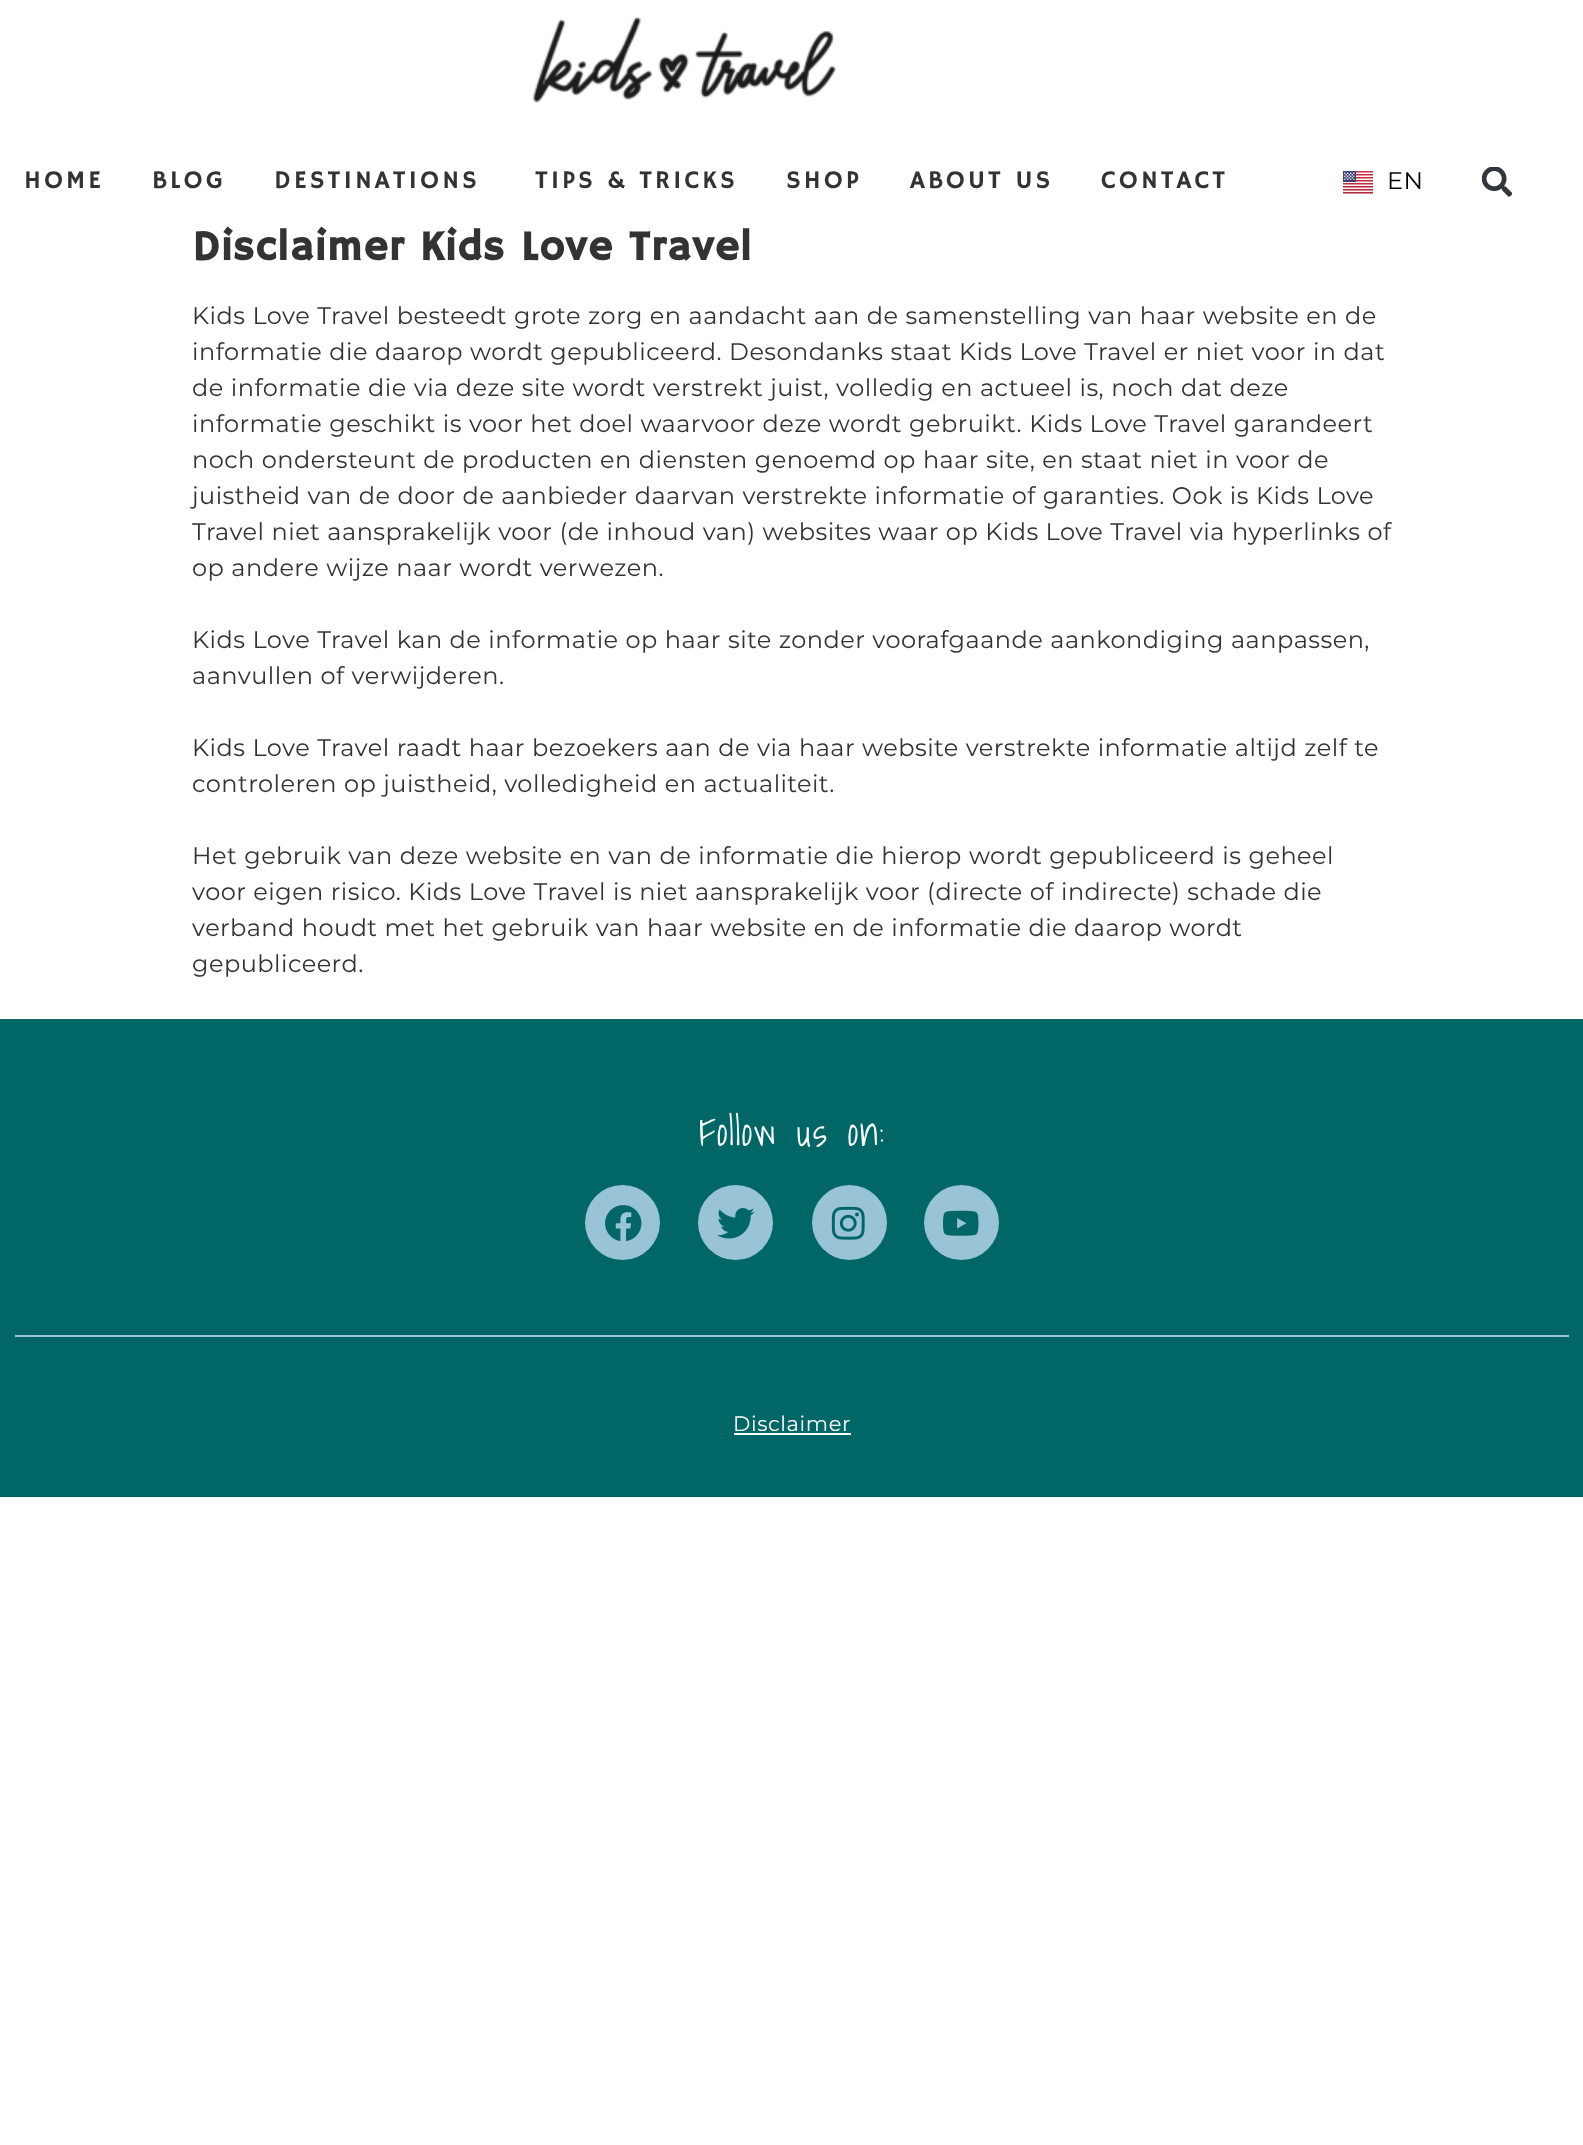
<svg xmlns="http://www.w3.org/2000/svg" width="1583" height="2145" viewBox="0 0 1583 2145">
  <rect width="100%" height="100%" fill="#fff"/>
  <image x="532" y="16" width="304" height="87" href="img/1.png"/>
  <image x="1343" y="171" width="30" height="23" href="img/2.png"/>
  <image x="1482" y="167" width="30" height="30" href="img/3.png"/>
  <path d="M0 1019h1583v478H0z" fill="#016666"/>
  <path d="M15 1335h1554v2H15z" fill="#99c4d5"/>
  <circle cx="622.5" cy="1222.5" r="37.5" fill="#99c4d5"/>
  <image x="605" y="1205" width="37" height="37" href="img/4.png"/>
  <circle cx="735.5" cy="1222.5" r="37.5" fill="#99c4d5"/>
  <image x="717" y="1208" width="38" height="31" href="img/5.png"/>
  <circle cx="849.5" cy="1222.5" r="37.5" fill="#99c4d5"/>
  <image x="831" y="1206" width="34" height="34" href="img/6.png"/>
  <circle cx="961.5" cy="1222.5" r="37.5" fill="#99c4d5"/>
  <image x="943" y="1210" width="36" height="26" href="img/7.png"/>
  <path d="M734 1433h117v2H734z" fill="#fff"/>
  <g font-family="Hammersmith One" font-size="25.5" letter-spacing="3" fill="#333">
    <text x="24" y="188">HOME</text>
    <text x="152" y="188">BLOG</text>
    <text x="274" y="188">DESTINATIONS</text>
    <text x="535" y="188" word-spacing="0.25">TIPS &amp; TRICKS</text>
    <text x="786" y="188">SHOP</text>
    <text x="910" y="188" word-spacing="0.25">ABOUT US</text>
    <text x="1101" y="188">CONTACT</text>
  </g>
  <text x="1387" y="189" font-family="Montserrat" font-size="24" letter-spacing="0.48" fill="#000">EN</text>
  <text x="192" y="260" word-spacing="0.25" font-family="Hammersmith One" font-size="42" font-weight="bold" letter-spacing="1.25" fill="#333">Disclaimer Kids Love Travel</text>
  <g font-family="Montserrat" font-size="24" letter-spacing="0.48" fill="#333">
    <text x="192" y="324" word-spacing="0.25">Kids Love Travel besteedt grote zorg en aandacht aan de samenstelling van haar website en de</text>
    <text x="192" y="360" word-spacing="0.25">informatie die daarop wordt gepubliceerd. Desondanks staat Kids Love Travel er niet voor in dat</text>
    <text x="192" y="396" word-spacing="0.25">de informatie die via deze site wordt verstrekt juist, volledig en actueel is, noch dat deze</text>
    <text x="192" y="432" word-spacing="0.25">informatie geschikt is voor het doel waarvoor deze wordt gebruikt. Kids Love Travel garandeert</text>
    <text x="192" y="468" word-spacing="0.25">noch ondersteunt de producten en diensten genoemd op haar site, en staat niet in voor de</text>
    <text x="192" y="504" word-spacing="0.25">juistheid van de door de aanbieder daarvan verstrekte informatie of garanties. Ook is Kids Love</text>
    <text x="192" y="540" word-spacing="0.25">Travel niet aansprakelijk voor (de inhoud van) websites waar op Kids Love Travel via hyperlinks of</text>
    <text x="192" y="576" word-spacing="0.25">op andere wijze naar wordt verwezen.</text>
    <text x="192" y="648" word-spacing="0.25">Kids Love Travel kan de informatie op haar site zonder voorafgaande aankondiging aanpassen,</text>
    <text x="192" y="684" word-spacing="0.25">aanvullen of verwijderen.</text>
    <text x="192" y="756" word-spacing="0.25">Kids Love Travel raadt haar bezoekers aan de via haar website verstrekte informatie altijd zelf te</text>
    <text x="192" y="792" word-spacing="0.25">controleren op juistheid, volledigheid en actualiteit.</text>
    <text x="192" y="864" word-spacing="0.25">Het gebruik van deze website en van de informatie die hierop wordt gepubliceerd is geheel</text>
    <text x="192" y="900" word-spacing="0.25">voor eigen risico. Kids Love Travel is niet aansprakelijk voor (directe of indirecte) schade die</text>
    <text x="192" y="936" word-spacing="0.25">verband houdt met het gebruik van haar website en de informatie die daarop wordt</text>
    <text x="192" y="972">gepubliceerd.</text>
  </g>
  <text x="699" y="1146" word-spacing="1" font-family="Shadows Into Light" font-size="39" font-weight="300" letter-spacing="1.2" fill="#fff">Follow us on:</text>
  <text x="733" y="1431" font-family="Montserrat" font-size="21" letter-spacing="0.6" fill="#fff">Disclaimer</text>
</svg>
